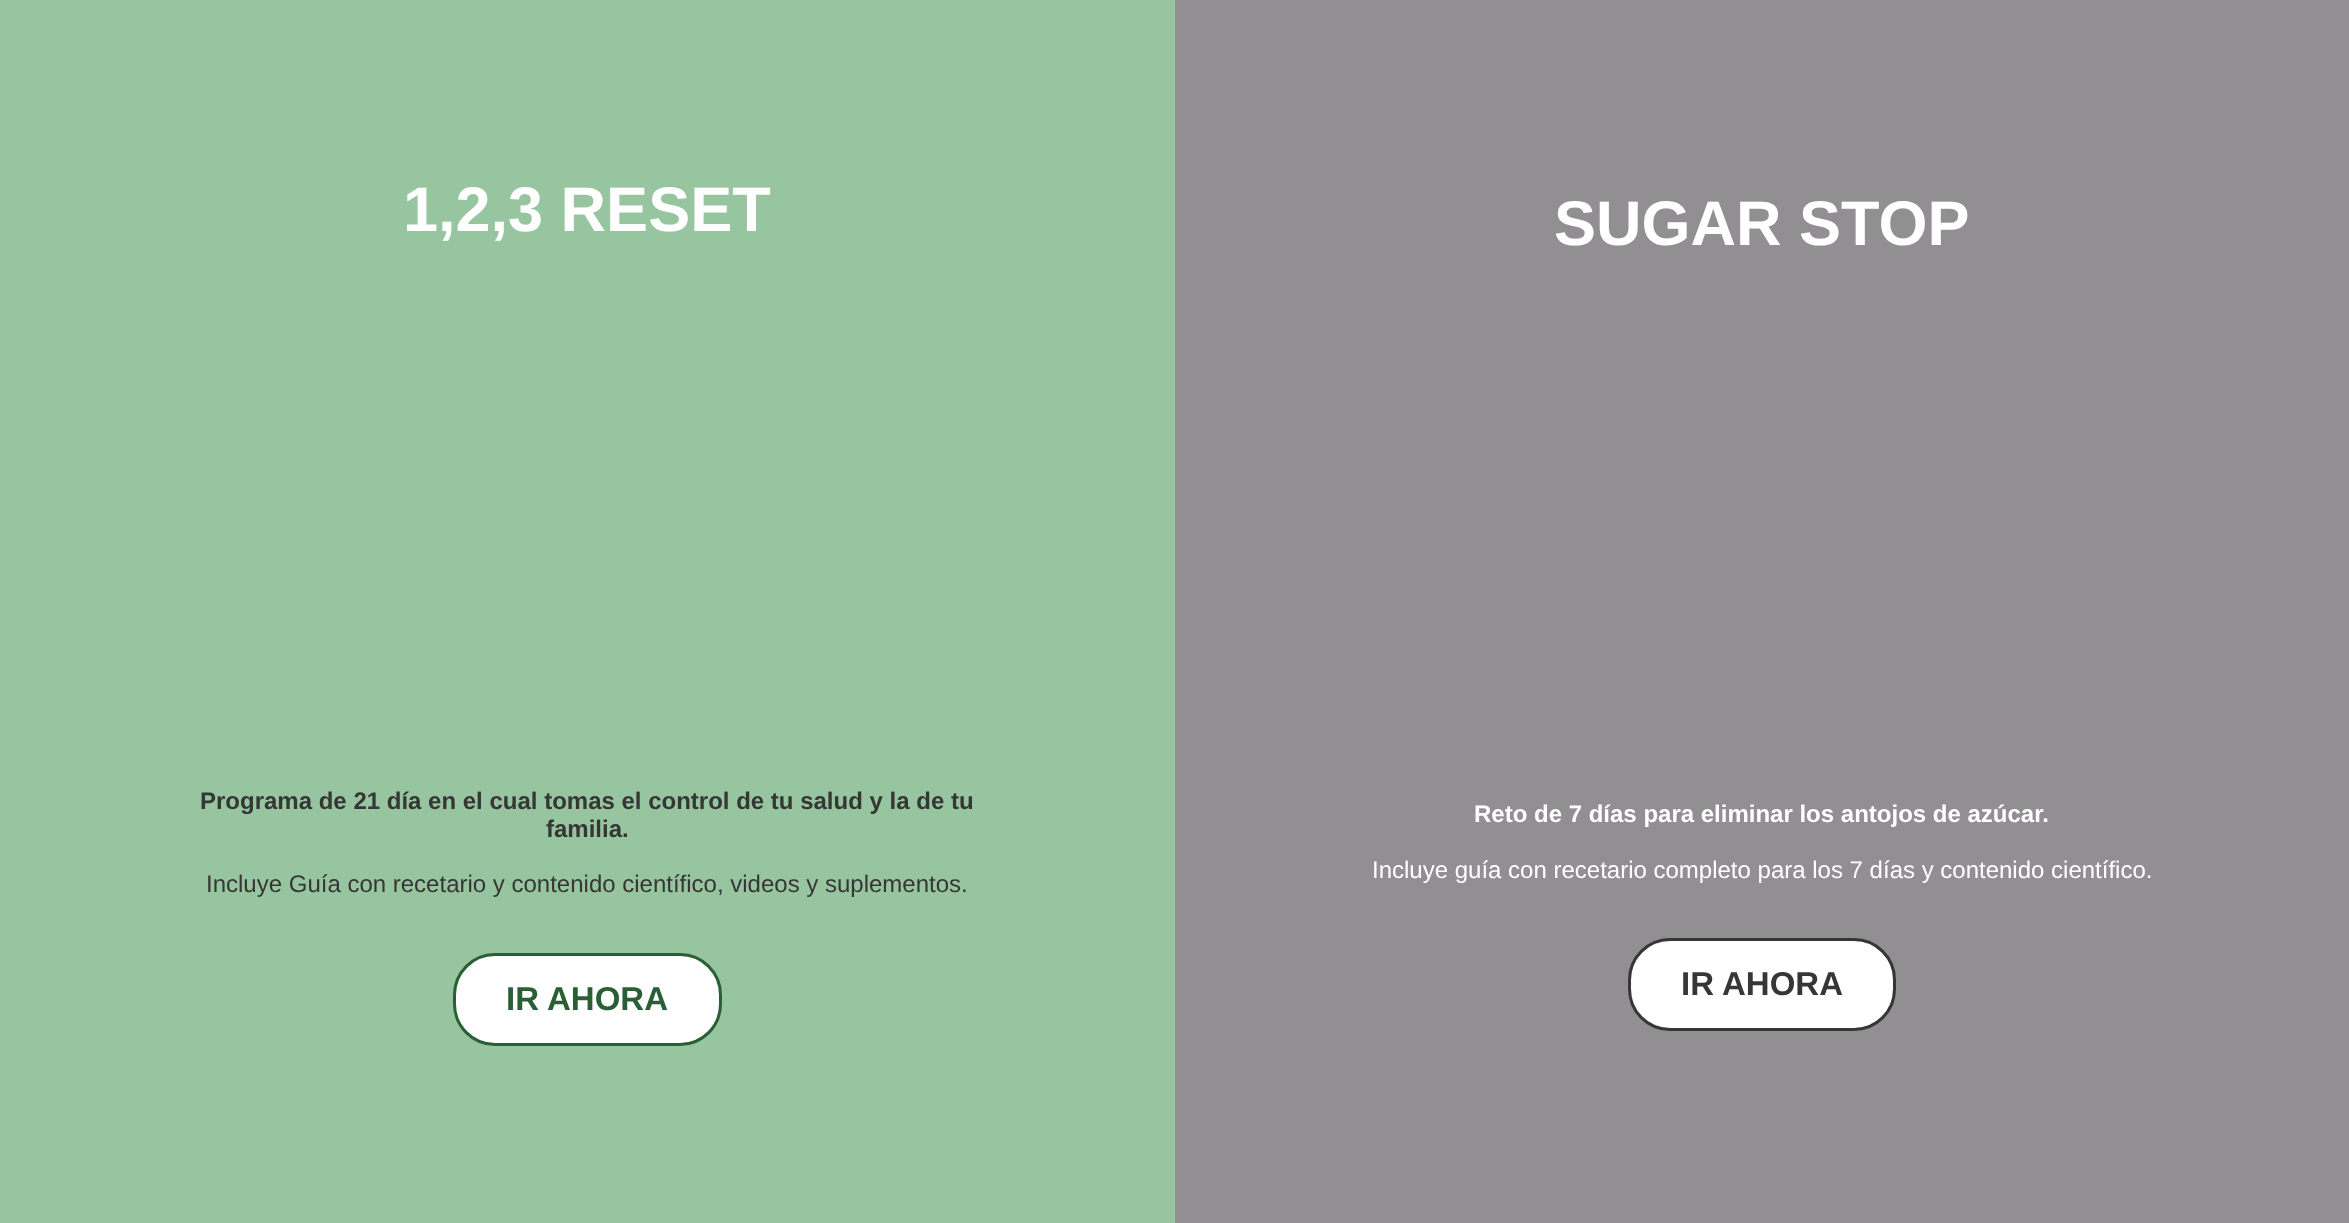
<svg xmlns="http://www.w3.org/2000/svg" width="2349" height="1223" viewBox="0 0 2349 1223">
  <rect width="100%" height="100%" fill="#96c59f"/>
  <rect x="454.5" y="954.5" width="266" height="90" rx="40.5" fill="#fff" stroke="#2a5f35" stroke-width="3"/>
  <path d="M1175 0h1174v1223H1175z" fill="#928f92"/>
  <rect x="1629.5" y="939.5" width="265" height="90" rx="40.5" fill="#fff" stroke="#363636" stroke-width="3"/>
  <text x="403" y="231" font-family="Liberation Sans" font-size="63" font-weight="bold" fill="#fff">1,2,3 RESET</text>
  <g font-family="Liberation Sans" font-size="24" font-weight="bold" fill="#363636">
    <text x="200" y="809">Programa de 21 día en el cual tomas el control de tu salud y la de tu</text>
    <text x="546" y="837">familia.</text>
  </g>
  <text x="206" y="892" font-family="Liberation Sans" font-size="24" fill="#363636">Incluye Guía con recetario y contenido científico, videos y suplementos.</text>
  <g font-family="Liberation Sans" font-size="33" font-weight="bold" fill="#2a5f35">
    <text x="506" y="1010">IR</text>
    <text x="547" y="1010">AHORA</text>
  </g>
  <text x="1554" y="245" font-family="Liberation Sans" font-size="63" font-weight="bold" fill="#fff">SUGAR STOP</text>
  <text x="1474" y="822" font-family="Liberation Sans" font-size="24" font-weight="bold" fill="#fff">Reto de 7 días para eliminar los antojos de azúcar.</text>
  <text x="1372" y="878" font-family="Liberation Sans" font-size="24" fill="#fff">Incluye guía con recetario completo para los 7 días y contenido científico.</text>
  <g font-family="Liberation Sans" font-size="33" font-weight="bold" fill="#363636">
    <text x="1681" y="995">IR</text>
    <text x="1722" y="995">AHORA</text>
  </g>
</svg>
